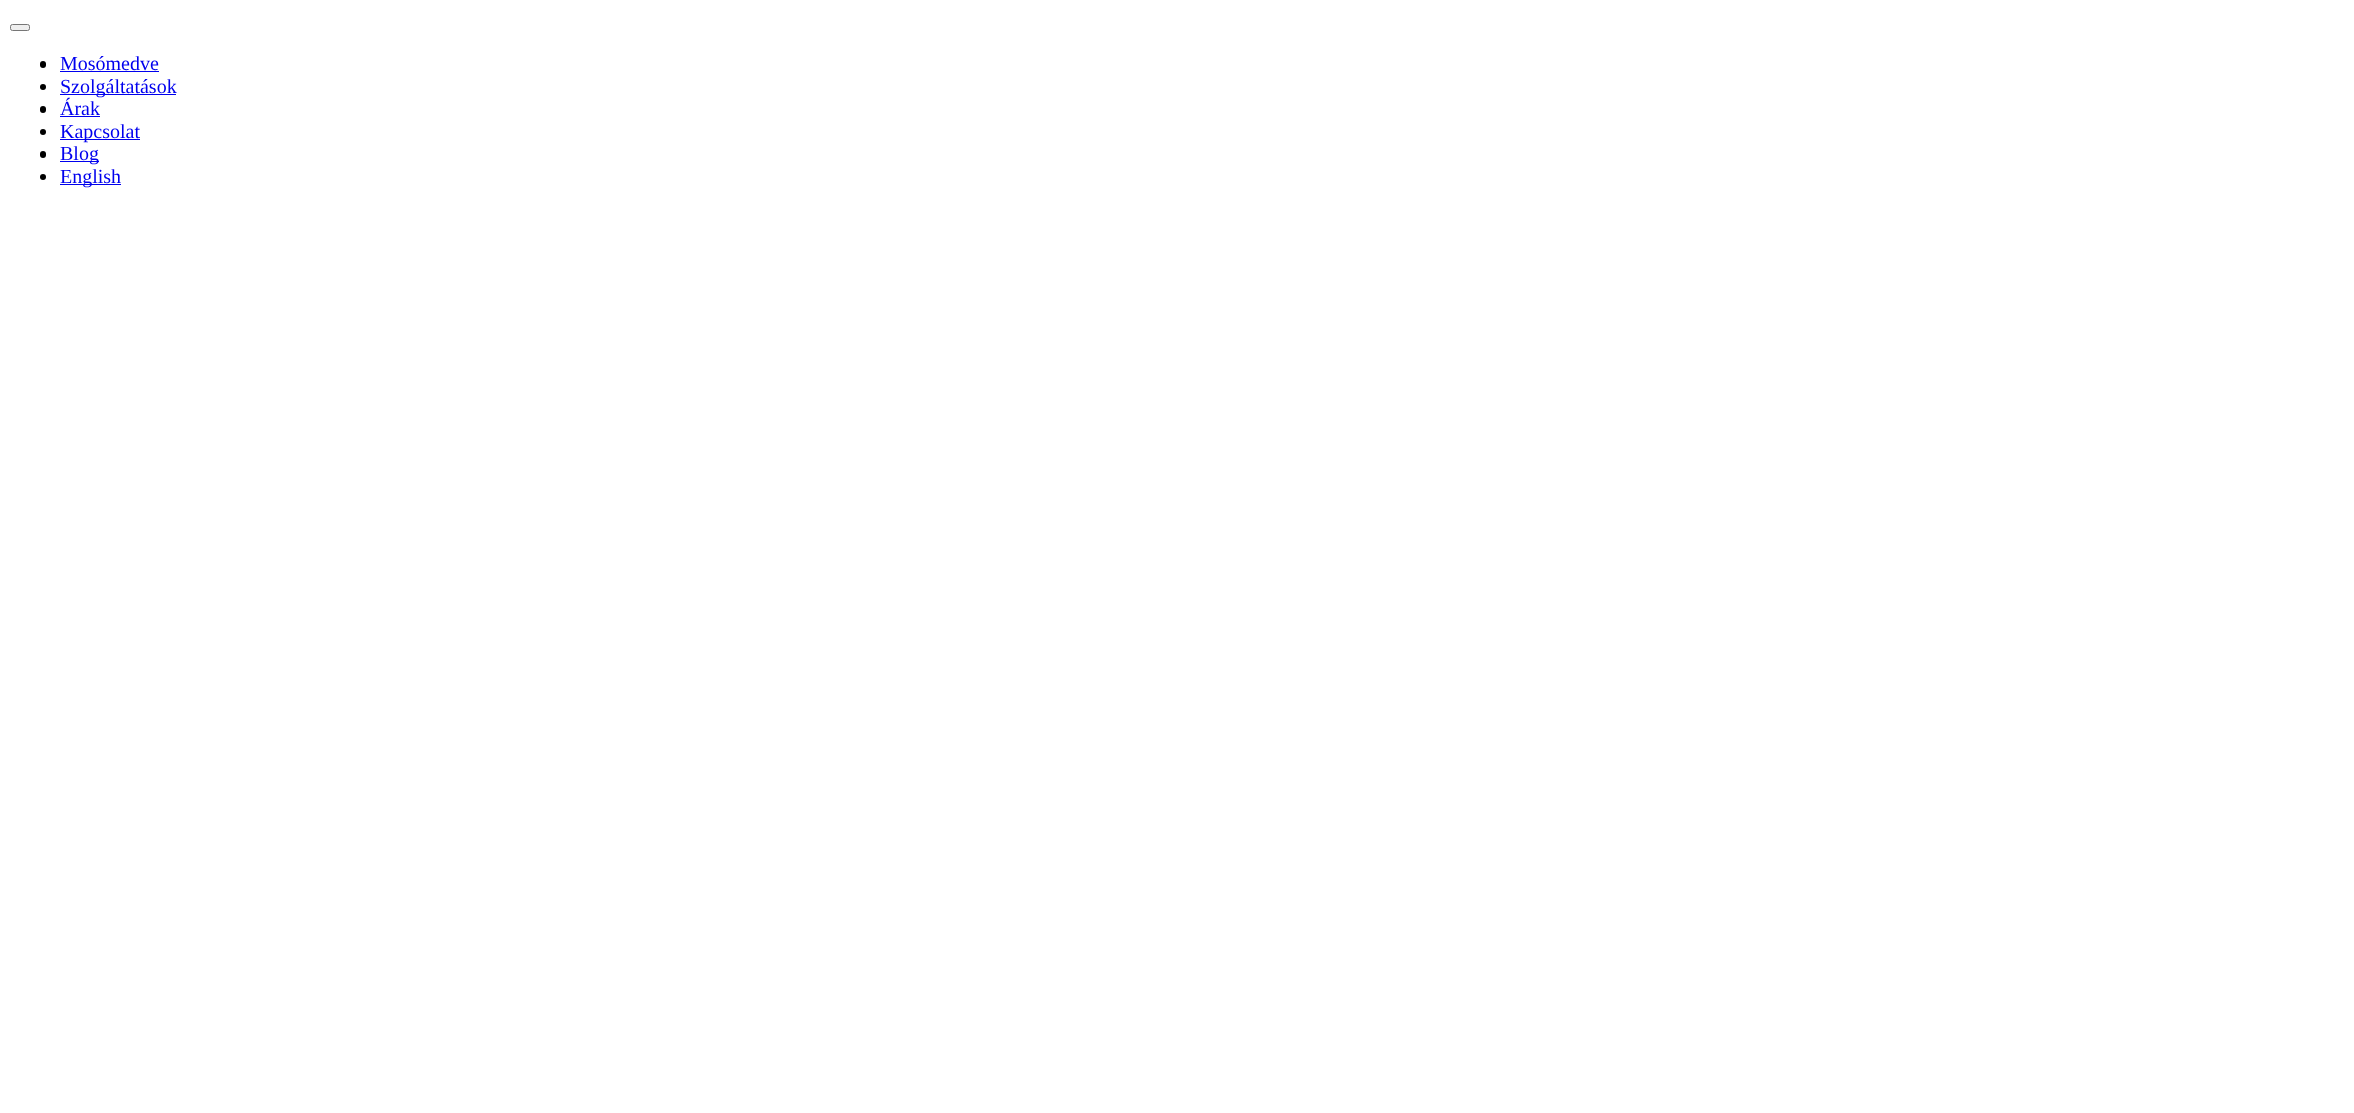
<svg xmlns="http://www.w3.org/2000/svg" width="2354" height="1113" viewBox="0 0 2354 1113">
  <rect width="100%" height="100%" fill="#fff"/>
  <rect x="10.5" y="24.5" width="19" height="6" rx="2" fill="#efefef" stroke="#767676"/>
  <rect x="40" y="61" width="6" height="7" rx="3" fill="#000"/>
  <path d="M60 71h99v1H60z" fill="#00e"/>
  <circle cx="43" cy="87" r="3" fill="#000"/>
  <path d="M60 94h116v1H60z" fill="#00e"/>
  <rect x="40" y="106" width="6" height="7" rx="3" fill="#000"/>
  <path d="M60 116h40v1H60z" fill="#00e"/>
  <circle cx="43" cy="132" r="3" fill="#000"/>
  <path d="M60 139h80v1H60z" fill="#00e"/>
  <rect x="40" y="151" width="6" height="7" rx="3" fill="#000"/>
  <path d="M60 161h39v1H60z" fill="#00e"/>
  <circle cx="43" cy="177" r="3" fill="#000"/>
  <path d="M60 184h61v1H60z" fill="#00e"/>
  <g font-family="Liberation Serif" font-size="20" fill="#00e">
    <text x="60" y="70">Mosómedve</text>
    <text x="60" y="93">Szolgáltatások</text>
    <text x="60" y="115">Árak</text>
    <text x="60" y="138">Kapcsolat</text>
    <text x="60" y="160">Blog</text>
    <text x="60" y="183">English</text>
  </g>
</svg>
